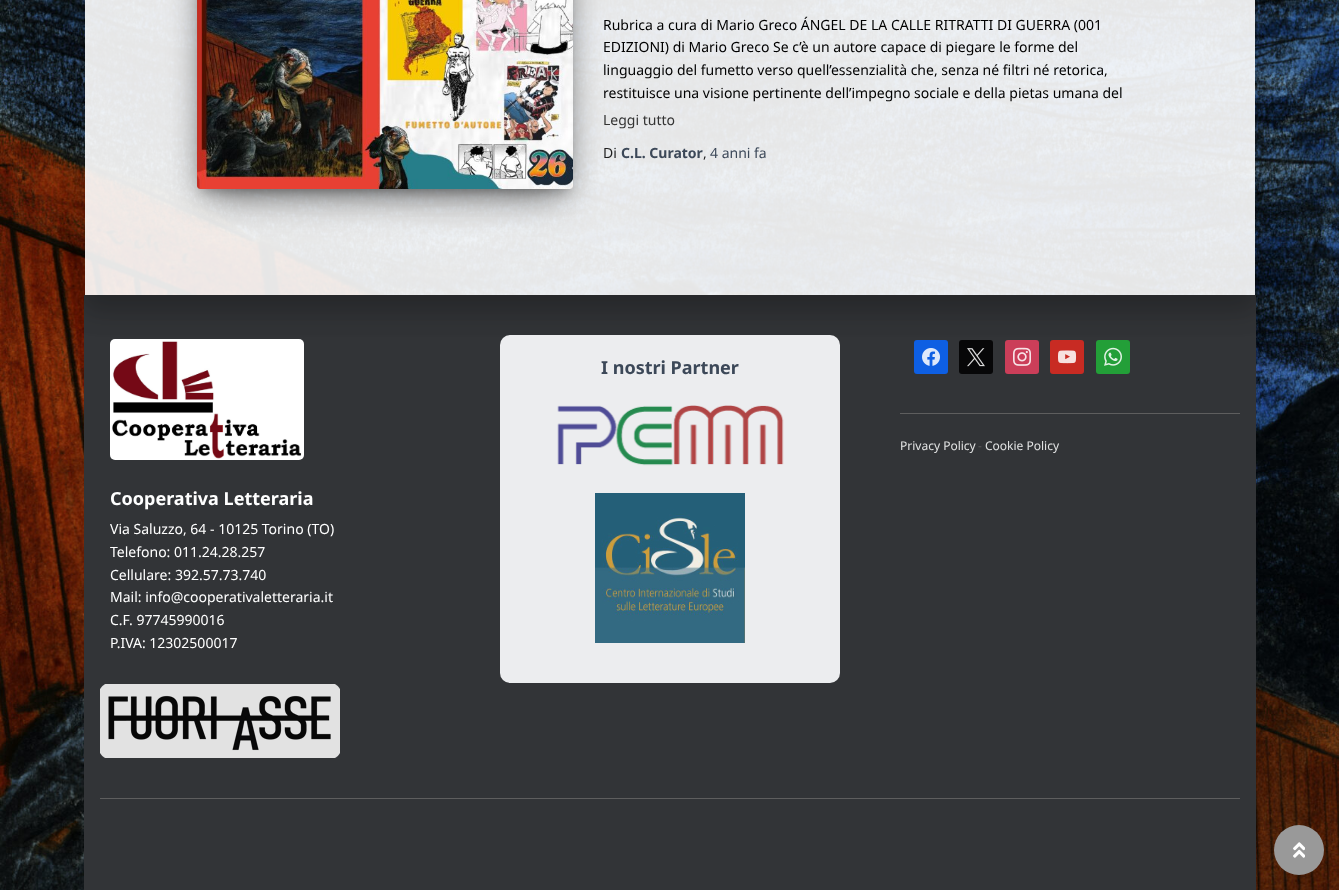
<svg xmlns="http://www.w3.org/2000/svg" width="1339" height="890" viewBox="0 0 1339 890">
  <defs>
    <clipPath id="clip1"><path d="M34 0H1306V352H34ZM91-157H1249C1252.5-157 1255-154.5 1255-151V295H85V-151C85-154.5 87.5-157 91-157Z" clip-rule="evenodd"/></clipPath>
    <clipPath id="clip2"><path d="M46 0H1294V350H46ZM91-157H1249C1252.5-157 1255-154.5 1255-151V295H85V-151C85-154.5 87.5-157 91-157Z" clip-rule="evenodd"/></clipPath>
  </defs>
  <rect width="100%" height="100%" fill="#fff"/>
  <image x="0" y="0" width="1339" height="890" href="img/1.png"/>
  <path d="M84 295h1172v595H84z" fill="#323437"/>
  <g clip-path="url(#clip1)">
    <rect x="80" y="-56" width="1180" height="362" rx="11" fill="#0000001f" filter="blur(15px)"/>
  </g>
  <g clip-path="url(#clip2)">
    <rect x="83" y="-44" width="1174" height="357" rx="8" fill="#00000024" filter="blur(12px)"/>
  </g>
  <path d="M85 0h1170v295H85z" fill="#ffffffe6"/>
  <path d="M202 -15h366v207H202z" fill="#00000033" filter="blur(5px)"/>
  <rect x="197" y="-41" width="376" height="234" rx="3" fill="#0000001f" filter="blur(12.5px)"/>
  <path d="M209 -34h352v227H209z" fill="#0000008f" filter="blur(19px)"/>
  <image x="197" y="0" width="376" height="189" href="img/2.png"/>
  <rect x="500" y="335" width="340" height="348" rx="10" fill="#ecedef"/>
  <image x="557" y="405" width="227" height="61" href="img/3.png"/>
  <image x="595" y="493" width="150" height="150" href="img/4.png"/>
  <rect x="914" y="340" width="34" height="34" rx="3" fill="#0e5fe3"/>
  <image x="922" y="348" width="18" height="18" href="img/5.png"/>
  <rect x="959" y="340" width="34" height="34" rx="3" fill="#070708"/>
  <image x="967" y="348" width="18" height="19" href="img/6.png"/>
  <rect x="1005" y="340" width="34" height="34" rx="3" fill="#cb3e59"/>
  <image x="1013" y="347" width="18" height="19" href="img/7.png"/>
  <rect x="1050" y="340" width="34" height="34" rx="3" fill="#c82b23"/>
  <image x="1058" y="350" width="19" height="14" href="img/8.png"/>
  <rect x="1096" y="340" width="34" height="34" rx="3" fill="#239f38"/>
  <image x="1104" y="347" width="18" height="19" href="img/9.png"/>
  <path d="M900 413h340v1H900z" fill="#5e5e5e"/>
  <image x="110" y="339" width="194" height="121" href="img/10.png"/>
  <image x="100" y="684" width="240" height="74" href="img/11.png"/>
  <path d="M100 798h1140v1H100z" fill="#5e5e5e"/>
  <circle cx="1299" cy="850" r="25" fill="#999"/>
  <image x="1293" y="842" width="12" height="16" href="img/12.png"/>
  <g font-family="Noto Sans" font-size="14" fill="#000">
    <text x="603" y="30">Rubrica a cura di Mario Greco ÁNGEL DE LA CALLE RITRATTI DI GUERRA (001</text>
    <text x="603" y="52">EDIZIONI) di Mario Greco Se c’è un autore capace di piegare le forme del</text>
    <text x="603" y="75">linguaggio del fumetto verso quell’essenzialità che, senza né filtri né retorica,</text>
    <text x="603" y="98">restituisce una visione pertinente dell’impegno sociale e della pietas umana del</text>
  </g>
  <text x="603" y="125" font-family="Noto Sans" font-size="14" fill="#333">Leggi tutto</text>
  <text x="603" y="158" font-family="Noto Sans" font-size="14" fill="#1e1e1e">Di</text>
  <text x="621" y="158" font-family="Noto Sans" font-size="14" font-weight="bold" fill="#3c4858">C.L. Curator</text>
  <text x="703" y="158" font-family="Noto Sans" font-size="14" fill="#1e1e1e">,</text>
  <text x="710" y="158" font-family="Noto Sans" font-size="14" fill="#3c4858">4 anni fa</text>
  <text x="601" y="374" font-family="Noto Sans" font-size="18" font-weight="bold" fill="#3c4858">I nostri Partner</text>
  <text x="900" y="450" font-family="Noto Sans" font-size="12" fill="#e2e3e3">Privacy Policy</text>
  <text x="978" y="450" font-family="Noto Sans" font-size="12" fill="#5e5e5e">-</text>
  <text x="985" y="450" font-family="Noto Sans" font-size="12" fill="#e2e3e3">Cookie Policy</text>
  <text x="110" y="505" font-family="Noto Sans" font-size="18" font-weight="bold" fill="#fff">Cooperativa Letteraria</text>
  <g font-family="Noto Sans" font-size="14" fill="#fff">
    <text x="110" y="534">Via Saluzzo, 64 - 10125 Torino (TO)</text>
    <text x="110" y="557">Telefono: 011.24.28.257</text>
    <text x="110" y="580">Cellulare: 392.57.73.740</text>
    <text x="110" y="602">Mail: info@cooperativaletteraria.it</text>
    <text x="110" y="625">C.F. 97745990016</text>
    <text x="110" y="648">P.IVA: 12302500017</text>
  </g>
</svg>
